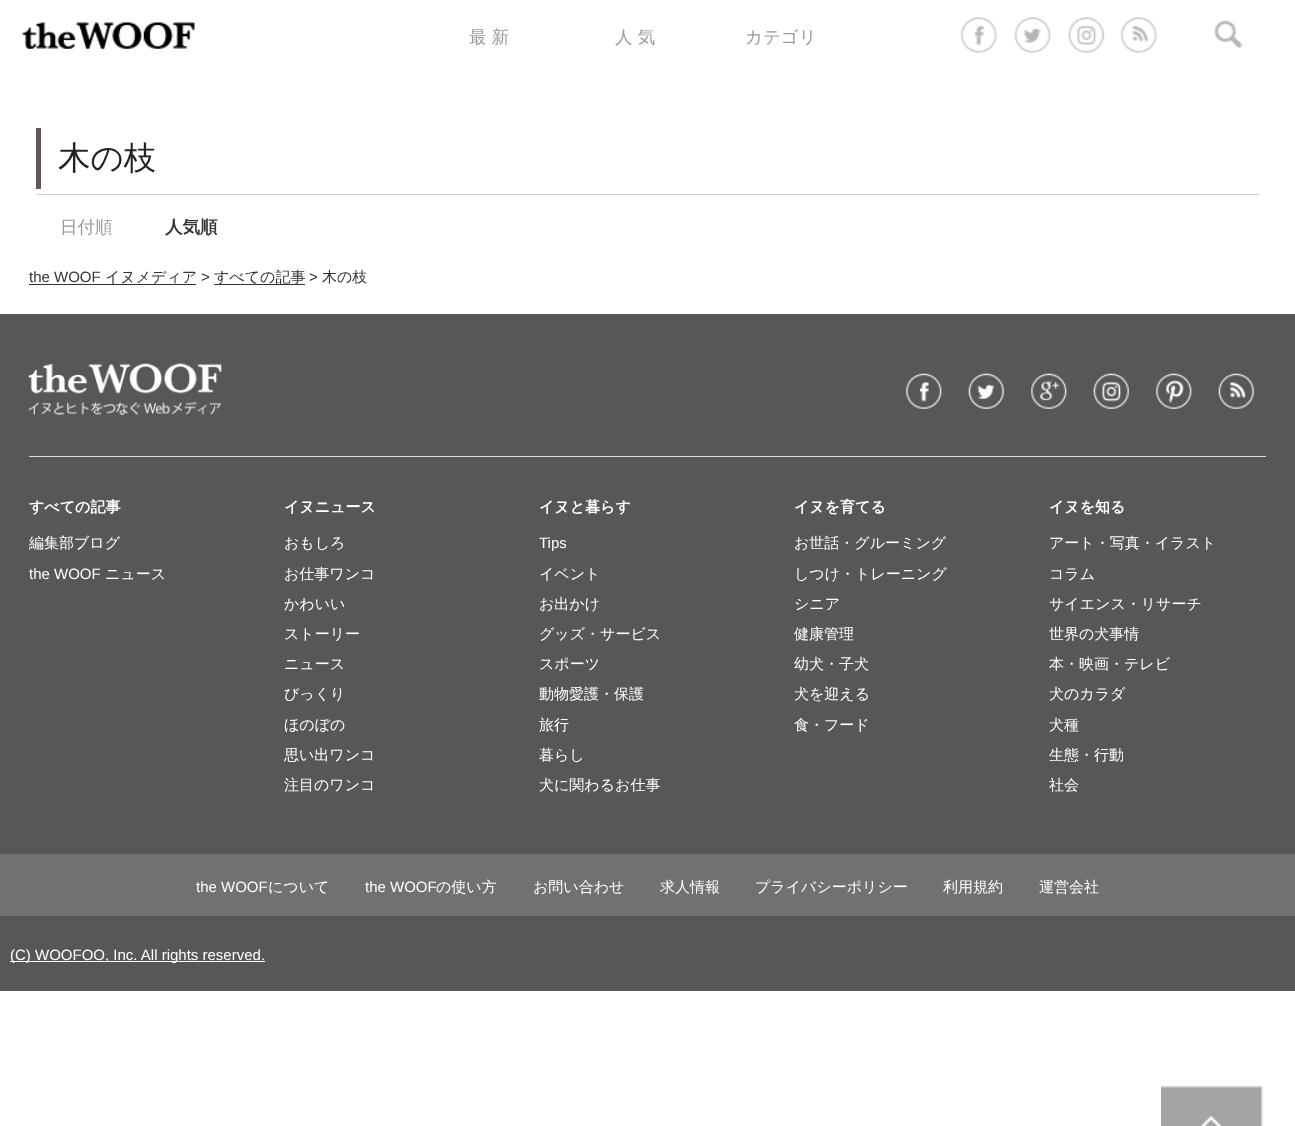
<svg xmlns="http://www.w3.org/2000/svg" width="1295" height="1126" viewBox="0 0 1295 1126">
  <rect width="100%" height="100%" fill="#fff"/>
  <image x="22" y="22" width="173" height="27" href="img/1.png"/>
  <image x="960" y="17" width="37" height="36" href="img/2.png"/>
  <image x="1014" y="17" width="37" height="36" href="img/3.png"/>
  <image x="1068" y="17" width="37" height="36" href="img/4.png"/>
  <image x="1120" y="17" width="37" height="36" href="img/5.png"/>
  <image x="1214" y="20" width="29" height="28" href="img/6.png"/>
  <path d="M36 194h1223v1H36z" fill="#ccc"/>
  <path d="M36 128h5v61H36z" fill="#635858"/>
  <path d="M29 284h167v1H29z" fill="#333"/>
  <path d="M214 284h91v1H214z" fill="#333"/>
  <path d="M0 314h1295v540H0z" fill="#595656"/>
  <image x="28" y="363" width="194" height="52" href="img/7.png"/>
  <image x="906" y="373" width="36" height="36" href="img/8.png"/>
  <image x="968" y="373" width="36" height="36" href="img/9.png"/>
  <image x="1031" y="373" width="36" height="36" href="img/10.png"/>
  <image x="1093" y="373" width="36" height="36" href="img/11.png"/>
  <image x="1156" y="373" width="36" height="36" href="img/12.png"/>
  <image x="1218" y="373" width="36" height="36" href="img/13.png"/>
  <path d="M29 456h1237v1H29z" fill="#dedede"/>
  <path d="M0 854h1295v62H0z" fill="#727171"/>
  <path d="M0 916h1295v75H0z" fill="#595656"/>
  <path d="M10 961h255v1H10z" fill="#fff"/>
  <image x="1161" y="1086" width="102" height="40" href="img/14.png"/>
  <g font-family="WenQuanYi Zen Hei" font-size="17.5" font-weight="500" fill="#999">
    <text x="469" y="43">最 新</text>
    <text x="615" y="43">人 気</text>
    <text x="745" y="43">カテゴリ</text>
  </g>
  <text x="58" y="169" font-family="WenQuanYi Zen Hei" font-size="32.5" font-weight="500" fill="#222">木の枝</text>
  <text x="60" y="233" font-family="WenQuanYi Zen Hei" font-size="17.5" font-weight="500" fill="#999">日付順</text>
  <text x="165" y="233" font-family="WenQuanYi Zen Hei" font-size="17.5" font-weight="bold" fill="#333">人気順</text>
  <text x="29" y="282" font-family="Liberation Sans" font-size="15" fill="#333">the WOOF</text>
  <text x="105" y="282" font-family="WenQuanYi Zen Hei" font-size="15" font-weight="500" fill="#333">イヌメディア</text>
  <text x="201" y="282" font-family="Liberation Sans" font-size="15" fill="#333">&gt;</text>
  <text x="214" y="282" font-family="WenQuanYi Zen Hei" font-size="15" font-weight="500" fill="#333">すべての記事</text>
  <text x="309" y="282" font-family="Liberation Sans" font-size="15" fill="#333">&gt;</text>
  <text x="322" y="282" font-family="WenQuanYi Zen Hei" font-size="15" font-weight="500" fill="#333">木の枝</text>
  <text x="29" y="512" font-family="WenQuanYi Zen Hei" font-size="15" font-weight="bold" fill="#fff">すべての記事</text>
  <text x="29" y="548" font-family="WenQuanYi Zen Hei" font-size="15" font-weight="500" fill="#fff">編集部ブログ</text>
  <text x="29" y="579" font-family="Liberation Sans" font-size="15" fill="#fff">the WOOF</text>
  <text x="105" y="579" font-family="WenQuanYi Zen Hei" font-size="15" font-weight="500" fill="#fff">ニュース</text>
  <text x="284" y="512" font-family="WenQuanYi Zen Hei" font-size="15" font-weight="bold" fill="#fff">イヌニュース</text>
  <g font-family="WenQuanYi Zen Hei" font-size="15" font-weight="500" fill="#fff">
    <text x="284" y="548">おもしろ</text>
    <text x="284" y="579">お仕事ワンコ</text>
    <text x="284" y="609">かわいい</text>
    <text x="284" y="639">ストーリー</text>
    <text x="284" y="669">ニュース</text>
    <text x="284" y="699">びっくり</text>
    <text x="284" y="730">ほのぼの</text>
    <text x="284" y="760">思い出ワンコ</text>
    <text x="284" y="790">注目のワンコ</text>
  </g>
  <text x="539" y="512" font-family="WenQuanYi Zen Hei" font-size="15" font-weight="bold" fill="#fff">イヌと暮らす</text>
  <text x="539" y="548" font-family="Liberation Sans" font-size="15" fill="#fff">Tips</text>
  <g font-family="WenQuanYi Zen Hei" font-size="15" font-weight="500" fill="#fff">
    <text x="539" y="579">イベント</text>
    <text x="539" y="609">お出かけ</text>
    <text x="539" y="639">グッズ・サービス</text>
    <text x="539" y="669">スポーツ</text>
    <text x="539" y="699">動物愛護・保護</text>
    <text x="539" y="730">旅行</text>
    <text x="539" y="760">暮らし</text>
    <text x="539" y="790">犬に関わるお仕事</text>
  </g>
  <text x="794" y="512" font-family="WenQuanYi Zen Hei" font-size="15" font-weight="bold" fill="#fff">イヌを育てる</text>
  <g font-family="WenQuanYi Zen Hei" font-size="15" font-weight="500" fill="#fff">
    <text x="794" y="548">お世話・グルーミング</text>
    <text x="794" y="579">しつけ・トレーニング</text>
    <text x="794" y="609">シニア</text>
    <text x="794" y="639">健康管理</text>
    <text x="794" y="669">幼犬・子犬</text>
    <text x="794" y="699">犬を迎える</text>
    <text x="794" y="730">食・フード</text>
  </g>
  <text x="1049" y="512" font-family="WenQuanYi Zen Hei" font-size="15" font-weight="bold" fill="#fff">イヌを知る</text>
  <g font-family="WenQuanYi Zen Hei" font-size="15" font-weight="500" fill="#fff">
    <text x="1049" y="548">アート・写真・イラスト</text>
    <text x="1049" y="579">コラム</text>
    <text x="1049" y="609">サイエンス・リサーチ</text>
    <text x="1049" y="639">世界の犬事情</text>
    <text x="1049" y="669">本・映画・テレビ</text>
    <text x="1049" y="699">犬のカラダ</text>
    <text x="1049" y="730">犬種</text>
    <text x="1049" y="760">生態・行動</text>
    <text x="1049" y="790">社会</text>
  </g>
  <text x="196" y="892" font-family="Liberation Sans" font-size="15" fill="#fff">the WOOF</text>
  <text x="268" y="892" font-family="WenQuanYi Zen Hei" font-size="15" font-weight="500" fill="#fff">について</text>
  <text x="365" y="892" font-family="Liberation Sans" font-size="15" fill="#fff">the WOOF</text>
  <g font-family="WenQuanYi Zen Hei" font-size="15" font-weight="500" fill="#fff">
    <text x="436" y="892">の使い方</text>
    <text x="533" y="892">お問い合わせ</text>
    <text x="660" y="892">求人情報</text>
    <text x="755" y="892">プライバシーポリシー</text>
    <text x="943" y="892">利用規約</text>
    <text x="1039" y="892">運営会社</text>
  </g>
  <text x="10" y="960" font-family="Liberation Sans" font-size="15" fill="#fff">(C) WOOFOO, Inc. All rights reserved.</text>
</svg>
